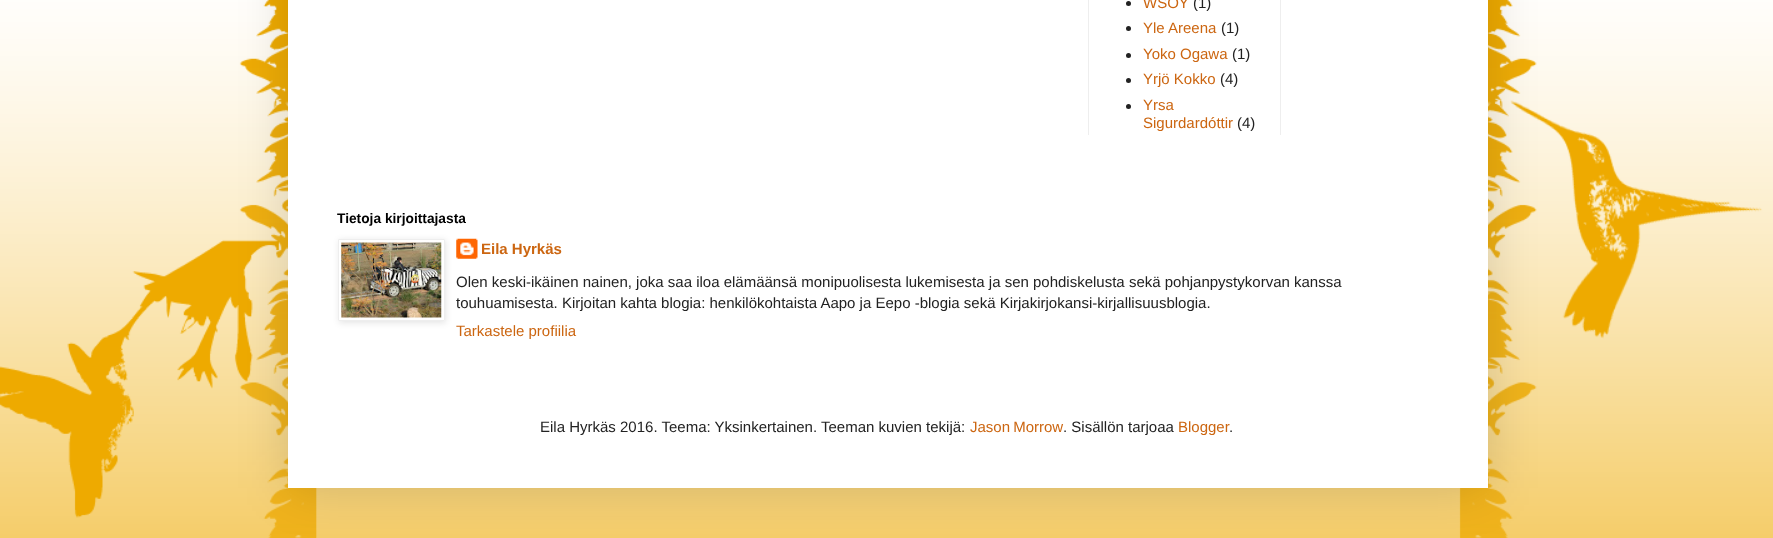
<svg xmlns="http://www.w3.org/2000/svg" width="1773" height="538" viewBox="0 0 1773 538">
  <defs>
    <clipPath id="clip1"><path d="M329 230H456V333H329ZM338 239H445V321H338Z" clip-rule="evenodd"/></clipPath>
  </defs>
  <rect width="100%" height="100%" fill="#ea0"/>
  <image x="0" y="0" width="1773" height="538" href="img/1.png"/>
  <path d="M288 -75h1200v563H288z" fill="#00000026" filter="blur(25px)"/>
  <path d="M288 0h1200v488H288z" fill="#fff"/>
  <path d="M1088 0h1v135H1088z" fill="#eee"/>
  <circle cx="1128.5" cy="3.5" r="2.5" fill="#222"/>
  <circle cx="1128.5" cy="28.5" r="2.5" fill="#222"/>
  <circle cx="1128.5" cy="55.5" r="2.5" fill="#222"/>
  <circle cx="1128.5" cy="80.5" r="2.5" fill="#222"/>
  <circle cx="1128.5" cy="106.5" r="2.5" fill="#222"/>
  <path d="M1280 0h1v135H1280z" fill="#eee"/>
  <g clip-path="url(#clip1)">
    <path d="M339 240h107v83H339z" fill="#0000001a" filter="blur(3px)"/>
  </g>
  <path d="M338.5 239.5h106v81H338.5z" fill="none" stroke="#eee"/>
  <image x="341" y="242" width="101" height="76" href="img/2.png"/>
  <image x="456" y="238" width="22" height="21" href="img/3.png"/>
  <text x="1143" y="8" font-family="Liberation Sans" font-size="15" fill="#c61">WSOY</text>
  <text x="1193" y="8" font-family="Liberation Sans" font-size="15" fill="#222">(1)</text>
  <text x="1143" y="33" font-family="Liberation Sans" font-size="15" fill="#c61">Yle Areena</text>
  <text x="1221" y="33" font-family="Liberation Sans" font-size="15" fill="#222">(1)</text>
  <text x="1143" y="59" font-family="Liberation Sans" font-size="15" fill="#c61">Yoko Ogawa</text>
  <text x="1232" y="59" font-family="Liberation Sans" font-size="15" fill="#222">(1)</text>
  <text x="1143" y="84" font-family="Liberation Sans" font-size="15" fill="#c61">Yrjö Kokko</text>
  <text x="1220" y="84" font-family="Liberation Sans" font-size="15" fill="#222">(4)</text>
  <g font-family="Liberation Sans" font-size="15" fill="#c61">
    <text x="1143" y="110">Yrsa</text>
    <text x="1143" y="128">Sigurdardóttir</text>
  </g>
  <text x="1237" y="128" font-family="Liberation Sans" font-size="15" fill="#222">(4)</text>
  <text x="337" y="223" font-family="Liberation Sans" font-size="13.75" font-weight="bold" fill="#000">Tietoja kirjoittajasta</text>
  <text x="481" y="254" font-family="Liberation Sans" font-size="15" font-weight="bold" fill="#c61">Eila Hyrkäs</text>
  <g font-family="Liberation Sans" font-size="15" fill="#222">
    <text x="456" y="287">Olen keski-ikäinen nainen, joka saa iloa elämäänsä monipuolisesta lukemisesta ja sen pohdiskelusta sekä pohjanpystykorvan kanssa</text>
    <text x="456" y="308">touhuamisesta. Kirjoitan kahta blogia: henkilökohtaista Aapo ja Eepo -blogia sekä Kirjakirjokansi-kirjallisuusblogia.</text>
  </g>
  <text x="456" y="336" font-family="Liberation Sans" font-size="15" fill="#c61">Tarkastele profiilia</text>
  <text x="540" y="432" font-family="Liberation Sans" font-size="15" fill="#222">Eila Hyrkäs 2016. Teema: Yksinkertainen. Teeman kuvien tekijä:</text>
  <text x="970" y="432" word-spacing="-1" font-family="Liberation Sans" font-size="15" fill="#c61">Jason Morrow</text>
  <text x="1063" y="432" font-family="Liberation Sans" font-size="15" fill="#222">. Sisällön tarjoaa</text>
  <text x="1178" y="432" font-family="Liberation Sans" font-size="15" fill="#c61">Blogger</text>
  <text x="1229" y="432" font-family="Liberation Sans" font-size="15" fill="#222">.</text>
</svg>
